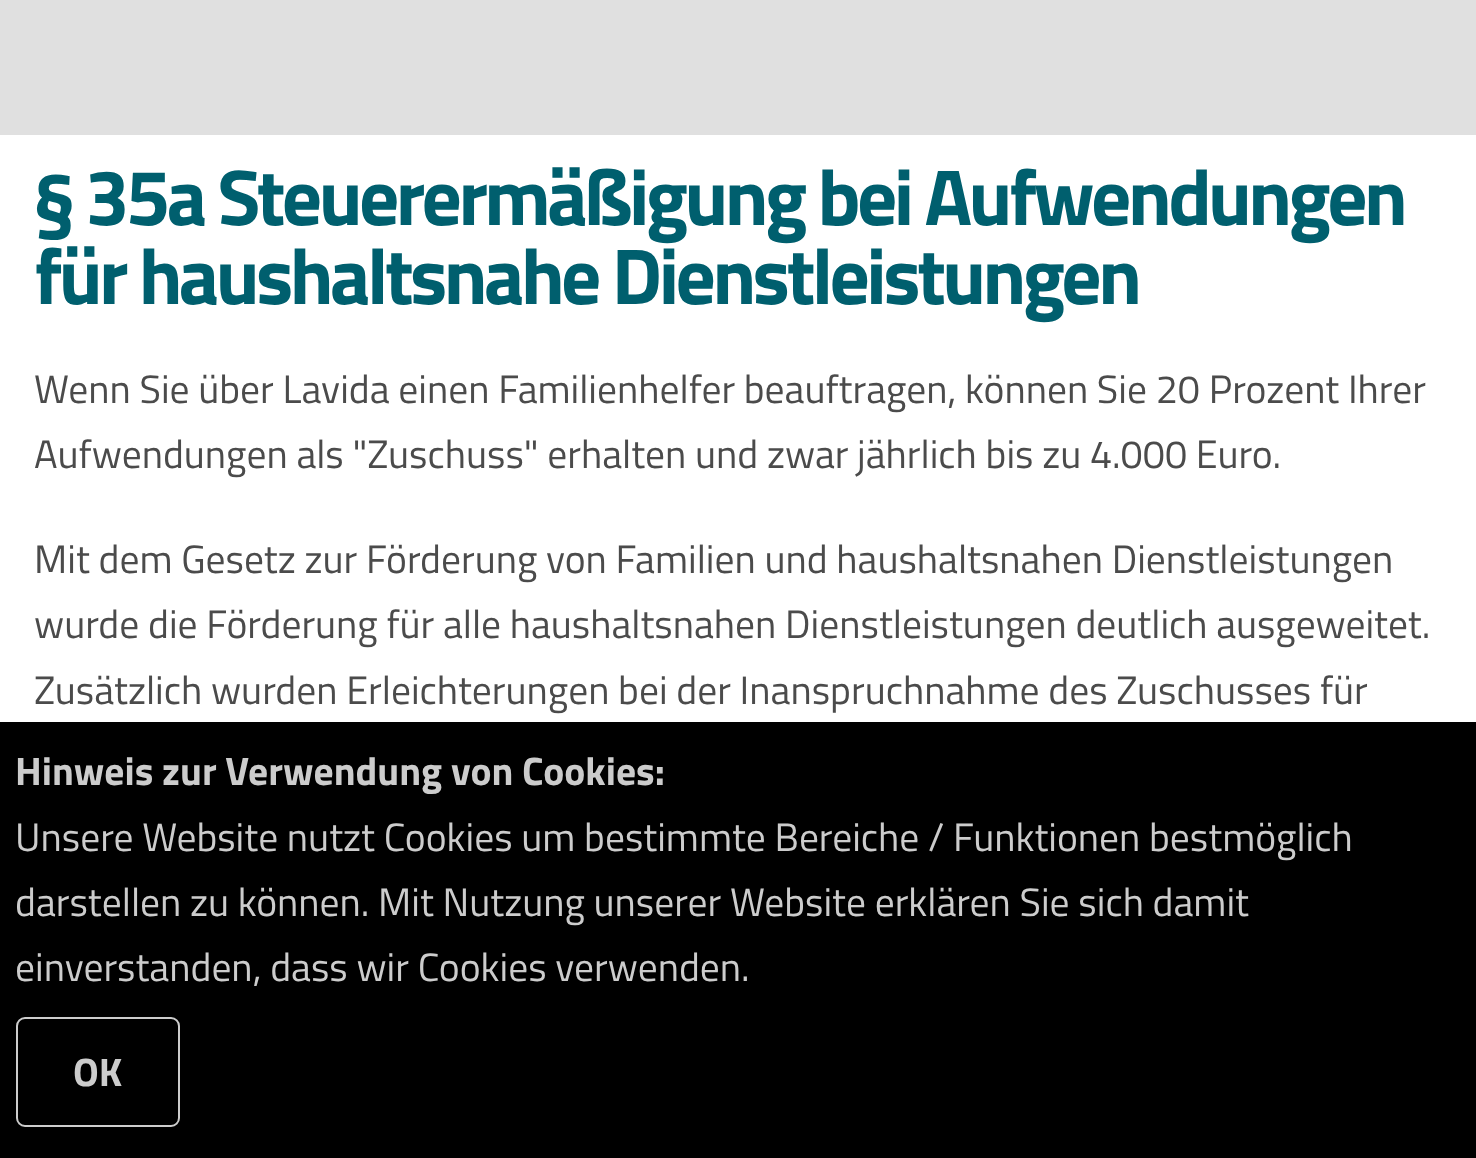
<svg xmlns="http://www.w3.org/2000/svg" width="1476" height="1158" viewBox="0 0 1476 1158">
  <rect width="100%" height="100%" fill="#fff"/>
  <path d="M0 0h1476v135H0z" fill="#e0e0e0"/>
  <path d="M0 722h1476v436H0z" fill="#000"/>
  <rect x="17" y="1018" width="162" height="108" rx="8" fill="none" stroke="#ccc" stroke-width="2"/>
  <g font-family="Titillium Web" font-size="79.25" font-weight="bold" letter-spacing="-3.6" fill="#005f6e">
    <text x="34" y="225">§ 35a Steuerermäßigung bei Aufwendungen</text>
    <text x="34" y="304">für haushaltsnahe Dienstleistungen</text>
  </g>
  <g font-family="Titillium Web" font-size="39.6" fill="#4b4b4b">
    <text x="34" y="403">Wenn Sie über Lavida einen Familienhelfer beauftragen, können Sie 20 Prozent Ihrer</text>
    <text x="34" y="468">Aufwendungen als "Zuschuss" erhalten und zwar jährlich bis zu 4.000 Euro.</text>
    <text x="34" y="573">Mit dem Gesetz zur Förderung von Familien und haushaltsnahen Dienstleistungen</text>
    <text x="34" y="638">wurde die Förderung für alle haushaltsnahen Dienstleistungen deutlich ausgeweitet.</text>
    <text x="34" y="704">Zusätzlich wurden Erleichterungen bei der Inanspruchnahme des Zuschusses für</text>
  </g>
  <text x="15" y="785" font-family="Titillium Web" font-size="39.6" font-weight="bold" fill="#ccc">Hinweis zur Verwendung von Cookies:</text>
  <g font-family="Titillium Web" font-size="39.6" fill="#ccc">
    <text x="15" y="851">Unsere Website nutzt Cookies um bestimmte Bereiche / Funktionen bestmöglich</text>
    <text x="15" y="916">darstellen zu können. Mit Nutzung unserer Website erklären Sie sich damit</text>
    <text x="15" y="981">einverstanden, dass wir Cookies verwenden.</text>
  </g>
  <text x="73" y="1086" font-family="Titillium Web" font-size="39.6" font-weight="bold" fill="#ccc">OK</text>
</svg>
